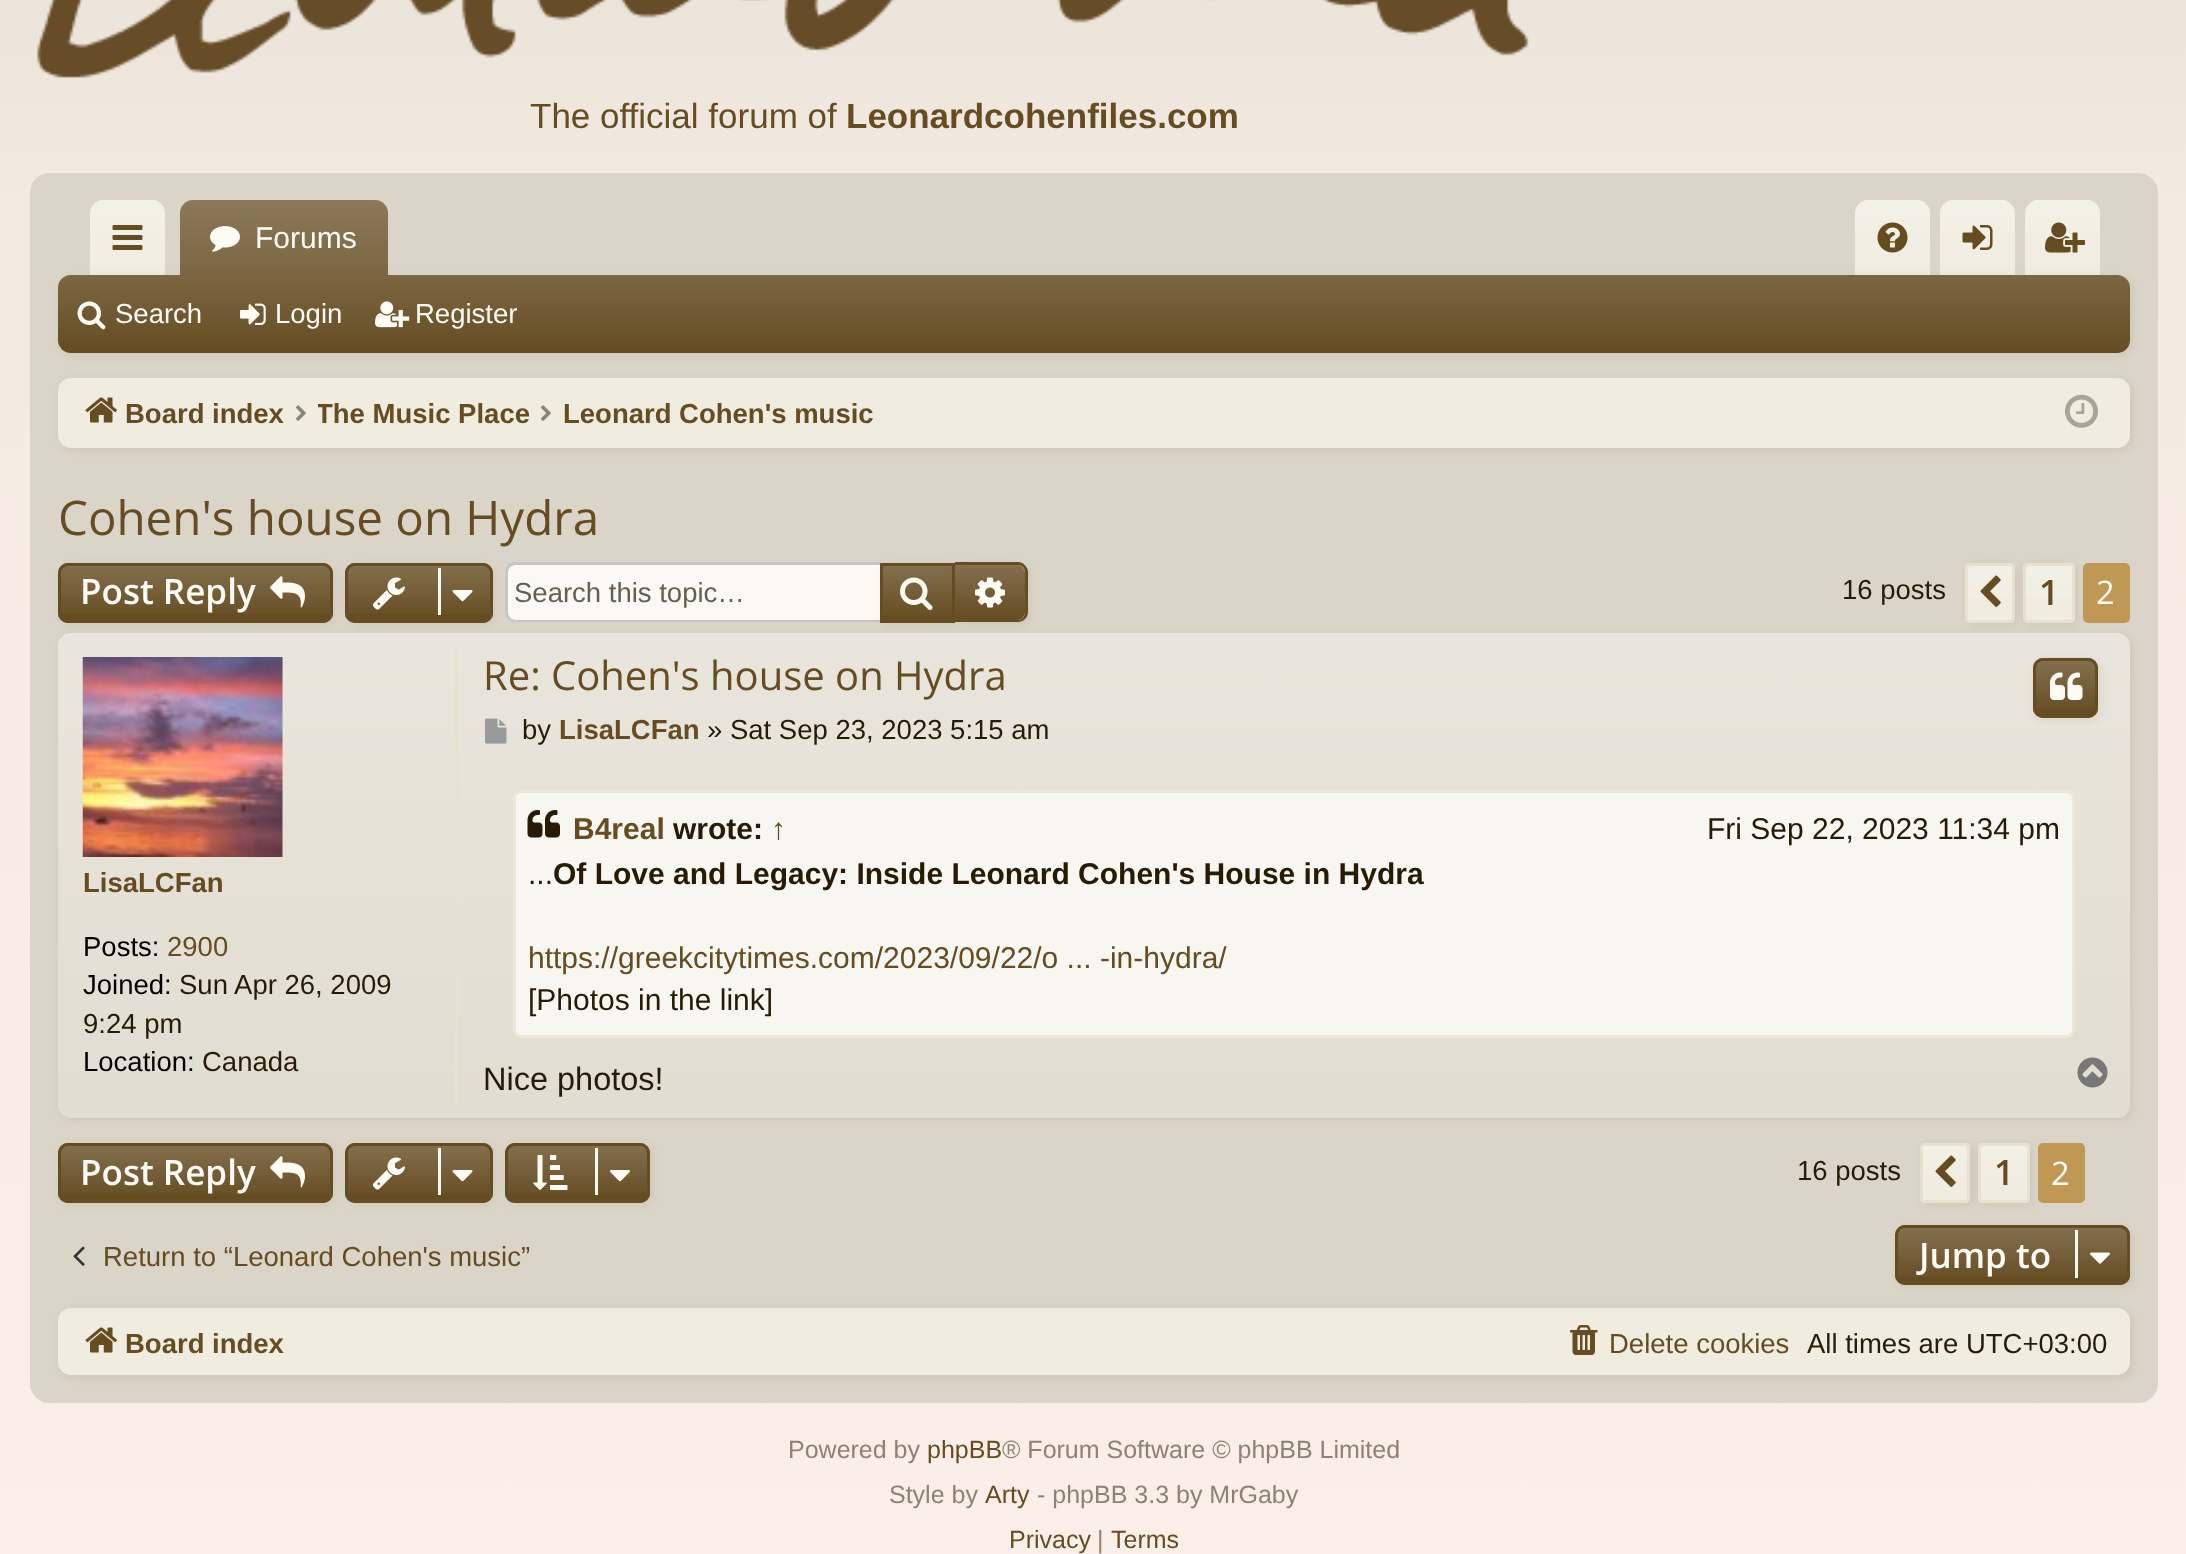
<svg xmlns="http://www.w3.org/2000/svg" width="2186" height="1554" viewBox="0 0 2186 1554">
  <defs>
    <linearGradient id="g1" gradientUnits="userSpaceOnUse" x1="1094" y1="-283" x2="1094" y2="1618"><stop offset="0" stop-color="#e2ddd1"/><stop offset="0.26" stop-color="#f3eae2"/><stop offset="1" stop-color="#fbefe9"/></linearGradient>
    <linearGradient id="g2" gradientUnits="userSpaceOnUse" x1="128" y1="200" x2="128" y2="275"><stop offset="0" stop-color="#fff" stop-opacity="0.25"/><stop offset="1" stop-color="#fff" stop-opacity="0"/></linearGradient>
    <linearGradient id="g3" gradientUnits="userSpaceOnUse" x1="284" y1="200" x2="284" y2="275"><stop offset="0" stop-color="#fff" stop-opacity="0.25"/><stop offset="1" stop-color="#fff" stop-opacity="0.15"/></linearGradient>
    <linearGradient id="g4" gradientUnits="userSpaceOnUse" x1="1893" y1="200" x2="1893" y2="275"><stop offset="0" stop-color="#fff" stop-opacity="0.25"/><stop offset="1" stop-color="#fff" stop-opacity="0"/></linearGradient>
    <linearGradient id="g5" gradientUnits="userSpaceOnUse" x1="1978" y1="200" x2="1978" y2="275"><stop offset="0" stop-color="#fff" stop-opacity="0.25"/><stop offset="1" stop-color="#fff" stop-opacity="0"/></linearGradient>
    <linearGradient id="g6" gradientUnits="userSpaceOnUse" x1="2063" y1="200" x2="2063" y2="275"><stop offset="0" stop-color="#fff" stop-opacity="0.25"/><stop offset="1" stop-color="#fff" stop-opacity="0"/></linearGradient>
    <linearGradient id="g7" gradientUnits="userSpaceOnUse" x1="1094" y1="275" x2="1094" y2="353"><stop offset="0" stop-color="#fff" stop-opacity="0.15"/><stop offset="1" stop-color="#fff" stop-opacity="0"/></linearGradient>
    <clipPath id="clip1"><rect x="58" y="563" width="275" height="60" rx="10"/></clipPath>
    <linearGradient id="g8" gradientUnits="userSpaceOnUse" x1="195" y1="565" x2="195" y2="620"><stop offset="0" stop-color="#fff" stop-opacity="0.2"/><stop offset="1" stop-color="#fff" stop-opacity="0"/></linearGradient>
    <clipPath id="clip2"><rect x="345" y="563" width="148" height="60" rx="10"/></clipPath>
    <linearGradient id="g9" gradientUnits="userSpaceOnUse" x1="419" y1="565" x2="419" y2="620"><stop offset="0" stop-color="#fff" stop-opacity="0.2"/><stop offset="1" stop-color="#fff" stop-opacity="0"/></linearGradient>
    <linearGradient id="g10" gradientUnits="userSpaceOnUse" x1="918" y1="565" x2="918" y2="620"><stop offset="0" stop-color="#84704e"/><stop offset="1" stop-color="#654c22"/></linearGradient>
    <linearGradient id="g11" gradientUnits="userSpaceOnUse" x1="990" y1="565" x2="990" y2="620"><stop offset="0" stop-color="#fff" stop-opacity="0.2"/><stop offset="1" stop-color="#fff" stop-opacity="0"/></linearGradient>
    <linearGradient id="g12" gradientUnits="userSpaceOnUse" x1="1990" y1="565" x2="1990" y2="620"><stop offset="0" stop-color="#fff" stop-opacity="0.2"/><stop offset="1" stop-color="#fff" stop-opacity="0"/></linearGradient>
    <linearGradient id="g13" gradientUnits="userSpaceOnUse" x1="2049" y1="565" x2="2049" y2="620"><stop offset="0" stop-color="#fff" stop-opacity="0.2"/><stop offset="1" stop-color="#fff" stop-opacity="0"/></linearGradient>
    <linearGradient id="g14" gradientUnits="userSpaceOnUse" x1="1094" y1="632" x2="1094" y2="1118"><stop offset="0" stop-color="#fff" stop-opacity="0.25"/><stop offset="1" stop-color="#fff" stop-opacity="0"/></linearGradient>
    <clipPath id="clip3"><rect x="2033" y="658" width="65" height="60" rx="10"/></clipPath>
    <linearGradient id="g15" gradientUnits="userSpaceOnUse" x1="2065" y1="660" x2="2065" y2="715"><stop offset="0" stop-color="#fff" stop-opacity="0.2"/><stop offset="1" stop-color="#fff" stop-opacity="0"/></linearGradient>
    <clipPath id="clip4"><rect x="58" y="1143" width="275" height="60" rx="10"/></clipPath>
    <linearGradient id="g16" gradientUnits="userSpaceOnUse" x1="195" y1="1145" x2="195" y2="1200"><stop offset="0" stop-color="#fff" stop-opacity="0.2"/><stop offset="1" stop-color="#fff" stop-opacity="0"/></linearGradient>
    <clipPath id="clip5"><rect x="345" y="1143" width="148" height="60" rx="10"/></clipPath>
    <linearGradient id="g17" gradientUnits="userSpaceOnUse" x1="419" y1="1145" x2="419" y2="1200"><stop offset="0" stop-color="#fff" stop-opacity="0.2"/><stop offset="1" stop-color="#fff" stop-opacity="0"/></linearGradient>
    <clipPath id="clip6"><rect x="505" y="1143" width="145" height="60" rx="10"/></clipPath>
    <linearGradient id="g18" gradientUnits="userSpaceOnUse" x1="578" y1="1145" x2="578" y2="1200"><stop offset="0" stop-color="#fff" stop-opacity="0.2"/><stop offset="1" stop-color="#fff" stop-opacity="0"/></linearGradient>
    <linearGradient id="g19" gradientUnits="userSpaceOnUse" x1="1945" y1="1145" x2="1945" y2="1200"><stop offset="0" stop-color="#fff" stop-opacity="0.2"/><stop offset="1" stop-color="#fff" stop-opacity="0"/></linearGradient>
    <linearGradient id="g20" gradientUnits="userSpaceOnUse" x1="2004" y1="1145" x2="2004" y2="1200"><stop offset="0" stop-color="#fff" stop-opacity="0.2"/><stop offset="1" stop-color="#fff" stop-opacity="0"/></linearGradient>
    <clipPath id="clip7"><rect x="1895" y="1225" width="235" height="60" rx="10"/></clipPath>
    <linearGradient id="g21" gradientUnits="userSpaceOnUse" x1="2013" y1="1228" x2="2013" y2="1283"><stop offset="0" stop-color="#fff" stop-opacity="0.2"/><stop offset="1" stop-color="#fff" stop-opacity="0"/></linearGradient>
    <clipPath id="clip8"><path d="M318 385h212v55H318z"/></clipPath>
  </defs>
  <rect width="100%" height="100%" fill="#fff"/>
  <path d="M0 0h2186v1554H0z" fill="url(#g1)"/>
  <image x="36" y="0" width="1493" height="78" href="img/1.png"/>
  <rect x="31.5" y="174.5" width="2125" height="1227" rx="18.5" fill="#dbd5c9" stroke="#dbd5c9" stroke-width="3"/>
  <path d="M103 200H152C159 200 165 206 165 213V275H90V213C90 206 96 200 103 200Z" fill="#f0ece0"/>
  <path d="M103 200H152C159 200 165 206 165 213V275H90V213C90 206 96 200 103 200Z" fill="url(#g2)"/>
  <image x="112" y="225" width="31" height="25" href="img/2.png"/>
  <path d="M193 200H375C382 200 388 206 388 213V275H180V213C180 206 186 200 193 200Z" fill="#654c22"/>
  <path d="M193 200H375C382 200 388 206 388 213V275H180V213C180 206 186 200 193 200Z" fill="url(#g3)"/>
  <image x="210" y="226" width="30" height="26" href="img/3.png"/>
  <path d="M1868 200H1917C1924 200 1930 206 1930 213V275H1855V213C1855 206 1861 200 1868 200Z" fill="#f0ece0"/>
  <path d="M1868 200H1917C1924 200 1930 206 1930 213V275H1855V213C1855 206 1861 200 1868 200Z" fill="url(#g4)"/>
  <path d="M1953 200H2002C2009 200 2015 206 2015 213V275H1940V213C1940 206 1946 200 1953 200Z" fill="#f0ece0"/>
  <path d="M1953 200H2002C2009 200 2015 206 2015 213V275H1940V213C1940 206 1946 200 1953 200Z" fill="url(#g5)"/>
  <path d="M2038 200H2087C2094 200 2100 206 2100 213V275H2025V213C2025 206 2031 200 2038 200Z" fill="#f0ece0"/>
  <path d="M2038 200H2087C2094 200 2100 206 2100 213V275H2025V213C2025 206 2031 200 2038 200Z" fill="url(#g6)"/>
  <rect x="60" y="278" width="2073" height="77" rx="13" fill="#654c221a" filter="blur(4px)"/>
  <rect x="58" y="275" width="2072" height="78" rx="13" fill="#654c22"/>
  <rect x="58" y="275" width="2072" height="78" rx="13" fill="url(#g7)"/>
  <path d="M185 273H383C386 273 388 275 388 278H180C180 275 182 273 185 273Z" fill="#654c22"/>
  <path d="M185 273H383C386 273 388 275 388 278H180C180 275 182 273 185 273Z" fill="#ffffff26"/>
  <image x="1877" y="222" width="31" height="31" href="img/4.png"/>
  <image x="1962" y="225" width="31" height="25" href="img/5.png"/>
  <image x="2045" y="222" width="40" height="31" href="img/6.png"/>
  <image x="77" y="301" width="29" height="29" href="img/7.png"/>
  <image x="240" y="303" width="26" height="22" href="img/8.png"/>
  <image x="375" y="301" width="35" height="27" href="img/9.png"/>
  <rect x="60" y="380" width="2073" height="70" rx="13" fill="#654c221a" filter="blur(4px)"/>
  <rect x="58" y="378" width="2072" height="70" rx="13" fill="#f0ece0"/>
  <image x="85" y="397" width="32" height="26" href="img/10.png"/>
  <image x="296" y="405" width="10" height="16" href="img/11.png"/>
  <image x="541" y="405" width="10" height="16" href="img/11.png"/>
  <image x="2065" y="394" width="33" height="34" href="img/12.png"/>
  <rect x="60" y="565" width="275" height="60" rx="10" fill="#654c221a" filter="blur(4px)"/>
  <rect x="58" y="563" width="275" height="60" rx="10" fill="#654c22"/>
  <g clip-path="url(#clip1)">
    <path d="M58 565h275v49H58z" fill="url(#g8)"/>
  </g>
  <rect x="59.5" y="564.5" width="272" height="57" rx="8.5" fill="none" stroke="#654c22" stroke-width="3"/>
  <image x="270" y="576" width="35" height="32" href="img/13.png"/>
  <path d="M516 565H880V620H516C511.5 620 508 616.5 508 612V573C508 568.5 511.5 565 516 565Z" fill="#fbf9f6"/>
  <path d="M515 562H880V622H515C509 622 505 618 505 612V572C505 567 509 562 515 562ZM515 565H880V620H515C511 620 508 617 508 612V572C508 568 511 565 515 565Z" fill="#c6c6c6" fill-rule="evenodd"/>
  <rect x="348" y="565" width="147" height="60" rx="10" fill="#654c221a" filter="blur(4px)"/>
  <rect x="345" y="563" width="148" height="60" rx="10" fill="#654c22"/>
  <g clip-path="url(#clip2)">
    <path d="M345 565h148v49H345z" fill="url(#g9)"/>
  </g>
  <rect x="346.5" y="564.5" width="145" height="57" rx="8.5" fill="none" stroke="#654c22" stroke-width="3"/>
  <image x="372" y="577" width="33" height="33" href="img/14.png"/>
  <path d="M438 568h3v47H438z" fill="#fefbf5"/>
  <image x="452" y="590" width="21" height="12" href="img/15.png"/>
  <path d="M883 565h75v60H883z" fill="#654c221a" filter="blur(4px)"/>
  <path d="M883 566h69v54H883z" fill="url(#g10)"/>
  <path d="M881.5 564.5h72v57H881.5z" fill="none" stroke="#654c22" stroke-width="3"/>
  <image x="900" y="577" width="33" height="33" href="img/16.png"/>
  <rect x="958" y="565" width="72" height="60" rx="10" fill="#654c221a" filter="blur(4px)"/>
  <path d="M955 565H1017C1021.5 565 1025 568.5 1025 573V612C1025 616.5 1021.5 620 1017 620H955Z" fill="#654c22"/>
  <path d="M955 565H1017C1021.5 565 1025 568.5 1025 573V612C1025 616.5 1021.5 620 1017 620H955Z" fill="url(#g11)"/>
  <path d="M955 562H1018C1023 562 1028 567 1028 572V612C1028 618 1023 622 1018 622H955ZM955 565H1018C1022 565 1025 568 1025 572V612C1025 617 1022 620 1018 620H955Z" fill="#654c22" fill-rule="evenodd"/>
  <image x="975" y="577" width="30" height="31" href="img/17.png"/>
  <rect x="1968" y="565" width="50" height="60" rx="5" fill="#654c221a" filter="blur(4px)"/>
  <rect x="1965" y="563" width="50" height="60" rx="5" fill="#f0ece0"/>
  <path d="M1965 565h50v32H1965z" fill="url(#g12)"/>
  <rect x="1966.5" y="564.5" width="47" height="57" rx="3.5" fill="none" stroke="#e8e1cf" stroke-width="3"/>
  <image x="1980" y="575" width="21" height="32" href="img/18.png"/>
  <rect x="2025" y="565" width="53" height="60" rx="5" fill="#654c221a" filter="blur(4px)"/>
  <rect x="2023" y="563" width="52" height="60" rx="5" fill="#f0ece0"/>
  <path d="M2023 565h52v32H2023z" fill="url(#g13)"/>
  <rect x="2024.5" y="564.5" width="49" height="57" rx="3.5" fill="none" stroke="#e8e1cf" stroke-width="3"/>
  <rect x="2084.5" y="564.5" width="44" height="57" rx="3.5" fill="#c09855" stroke="#c09855" stroke-width="3"/>
  <rect x="60" y="635" width="2073" height="485" rx="13" fill="#654c221a" filter="blur(4px)"/>
  <rect x="58" y="633" width="2072" height="485" rx="13" fill="#e2ddd1"/>
  <rect x="58" y="633" width="2072" height="485" rx="13" fill="url(#g14)"/>
  <path d="M455 645h3v460H455z" fill="#e8e1cf"/>
  <image x="82" y="657" width="201" height="200" href="img/19.png"/>
  <rect x="2035" y="660" width="65" height="60" rx="10" fill="#654c221a" filter="blur(4px)"/>
  <rect x="2033" y="658" width="65" height="60" rx="10" fill="#654c22"/>
  <g clip-path="url(#clip3)">
    <path d="M2033 660h65v49H2033z" fill="url(#g15)"/>
  </g>
  <rect x="2034.5" y="659.5" width="62" height="57" rx="8.5" fill="none" stroke="#654c22" stroke-width="3"/>
  <image x="2050" y="672" width="33" height="28" href="img/20.png"/>
  <image x="485" y="718" width="22" height="26" href="img/21.png"/>
  <rect x="514.5" y="791.5" width="1559" height="245" rx="6.5" fill="#f8f6f0" stroke="#ede7d8" stroke-width="3"/>
  <image x="527" y="810" width="33" height="28" href="img/22.png"/>
  <image x="2077" y="1057" width="31" height="31" href="img/23.png"/>
  <rect x="60" y="1145" width="275" height="60" rx="10" fill="#654c221a" filter="blur(4px)"/>
  <rect x="58" y="1143" width="275" height="60" rx="10" fill="#654c22"/>
  <g clip-path="url(#clip4)">
    <path d="M58 1145h275v49H58z" fill="url(#g16)"/>
  </g>
  <rect x="59.5" y="1144.5" width="272" height="57" rx="8.5" fill="none" stroke="#654c22" stroke-width="3"/>
  <image x="270" y="1156" width="35" height="32" href="img/13.png"/>
  <rect x="348" y="1145" width="147" height="60" rx="10" fill="#654c221a" filter="blur(4px)"/>
  <rect x="345" y="1143" width="148" height="60" rx="10" fill="#654c22"/>
  <g clip-path="url(#clip5)">
    <path d="M345 1145h148v49H345z" fill="url(#g17)"/>
  </g>
  <rect x="346.5" y="1144.5" width="145" height="57" rx="8.5" fill="none" stroke="#654c22" stroke-width="3"/>
  <image x="372" y="1157" width="33" height="33" href="img/14.png"/>
  <path d="M438 1148h3v47H438z" fill="#fefbf5"/>
  <image x="452" y="1170" width="21" height="12" href="img/15.png"/>
  <rect x="508" y="1145" width="145" height="60" rx="10" fill="#654c221a" filter="blur(4px)"/>
  <rect x="505" y="1143" width="145" height="60" rx="10" fill="#654c22"/>
  <g clip-path="url(#clip6)">
    <path d="M505 1145h145v49H505z" fill="url(#g18)"/>
  </g>
  <rect x="506.5" y="1144.5" width="142" height="57" rx="8.5" fill="none" stroke="#654c22" stroke-width="3"/>
  <image x="533" y="1155" width="35" height="35" href="img/24.png"/>
  <path d="M595 1148h3v47H595z" fill="#fefbf5"/>
  <image x="610" y="1170" width="20" height="12" href="img/25.png"/>
  <rect x="1923" y="1145" width="50" height="60" rx="5" fill="#654c221a" filter="blur(4px)"/>
  <rect x="1920" y="1143" width="50" height="60" rx="5" fill="#f0ece0"/>
  <path d="M1920 1145h50v32H1920z" fill="url(#g19)"/>
  <rect x="1921.5" y="1144.5" width="47" height="57" rx="3.5" fill="none" stroke="#e8e1cf" stroke-width="3"/>
  <image x="1935" y="1155" width="21" height="32" href="img/18.png"/>
  <rect x="1980" y="1145" width="53" height="60" rx="5" fill="#654c221a" filter="blur(4px)"/>
  <rect x="1978" y="1143" width="52" height="60" rx="5" fill="#f0ece0"/>
  <path d="M1978 1145h52v32H1978z" fill="url(#g20)"/>
  <rect x="1979.5" y="1144.5" width="49" height="57" rx="3.5" fill="none" stroke="#e8e1cf" stroke-width="3"/>
  <rect x="2039.5" y="1144.5" width="44" height="57" rx="3.5" fill="#c09855" stroke="#c09855" stroke-width="3"/>
  <image x="73" y="1246" width="12" height="20" href="img/26.png"/>
  <rect x="1898" y="1228" width="235" height="60" rx="10" fill="#654c221a" filter="blur(4px)"/>
  <rect x="1895" y="1225" width="235" height="60" rx="10" fill="#654c22"/>
  <g clip-path="url(#clip7)">
    <path d="M1895 1228h235v49H1895z" fill="url(#g21)"/>
  </g>
  <rect x="1896.5" y="1226.5" width="232" height="57" rx="8.5" fill="none" stroke="#654c22" stroke-width="3"/>
  <path d="M2075 1230h3v48H2075z" fill="#fefbf5"/>
  <image x="2090" y="1252" width="20" height="12" href="img/27.png"/>
  <rect x="60" y="1310" width="2073" height="68" rx="13" fill="#654c221a" filter="blur(4px)"/>
  <rect x="58" y="1308" width="2072" height="67" rx="13" fill="#f0ece0"/>
  <image x="85" y="1327" width="32" height="26" href="img/10.png"/>
  <image x="1570" y="1325" width="28" height="30" href="img/28.png"/>
  <text x="530" y="128" font-family="Liberation Sans" font-size="35" fill="#654c22">The official forum of</text>
  <text x="846" y="128" font-family="Liberation Sans" font-size="35" font-weight="bold" fill="#654c22">Leonardcohenfiles.com</text>
  <text x="255" y="248" font-family="Liberation Sans" font-size="30" fill="#fefbf5">Forums</text>
  <g font-family="Liberation Sans" font-size="27.5" fill="#fefbf5">
    <text x="115" y="323">Search</text>
    <text x="275" y="323">Login</text>
    <text x="415" y="323">Register</text>
  </g>
  <text x="125" y="423" font-family="Liberation Sans" font-size="27.5" font-weight="bold" fill="#654c22">Board index</text>
  <g clip-path="url(#clip8)">
    <text x="316" y="423" font-family="Liberation Sans" font-size="27.5" font-weight="bold" fill="#654c22">The Music Place</text>
  </g>
  <text x="563" y="423" font-family="Liberation Sans" font-size="27.5" font-weight="bold" fill="#654c22">Leonard Cohen's music</text>
  <text x="58" y="535" font-family="Open Sans" font-size="47.5" fill="#654c22">Cohen's house on Hydra</text>
  <text x="80" y="604" font-family="Open Sans" font-size="35" font-weight="600" fill="#fefbf5">Post Reply</text>
  <text x="514" y="602" font-family="Liberation Sans" font-size="27.5" fill="#675e4f">Search this topic…</text>
  <text x="1842" y="599" font-family="Liberation Sans" font-size="27.5" fill="#271b08">16 posts</text>
  <text x="2039" y="605" font-family="Open Sans" font-size="35" font-weight="600" fill="#654c22">1</text>
  <text x="2096" y="604" font-family="Open Sans" font-size="32.5" fill="#fefbf5">2</text>
  <text x="83" y="892" font-family="Liberation Sans" font-size="27.5" font-weight="bold" fill="#654c22">LisaLCFan</text>
  <text x="83" y="956" font-family="Liberation Sans" font-size="27.5" fill="#000">Posts:</text>
  <text x="167" y="956" font-family="Liberation Sans" font-size="27.5" fill="#654c22">2900</text>
  <text x="83" y="994" font-family="Liberation Sans" font-size="27.5" fill="#000">Joined:</text>
  <g font-family="Liberation Sans" font-size="27.5" fill="#271b08">
    <text x="179" y="994">Sun Apr 26, 2009</text>
    <text x="83" y="1033">9:24 pm</text>
  </g>
  <text x="83" y="1071" font-family="Liberation Sans" font-size="27.5" fill="#000">Location:</text>
  <text x="202" y="1071" font-family="Liberation Sans" font-size="27.5" fill="#271b08">Canada</text>
  <text x="483" y="690" font-family="Open Sans" font-size="40" fill="#654c22">Re: Cohen's house on Hydra</text>
  <text x="522" y="739" font-family="Liberation Sans" font-size="27.5" fill="#271b08">by</text>
  <text x="559" y="739" font-family="Liberation Sans" font-size="27.5" font-weight="bold" fill="#654c22">LisaLCFan</text>
  <text x="707" y="739" font-family="Liberation Sans" font-size="27.5" fill="#271b08">» Sat Sep 23, 2023 5:15 am</text>
  <text x="573" y="839" font-family="Liberation Sans" font-size="30" font-weight="bold" fill="#654c22">B4real</text>
  <text x="673" y="839" font-family="Liberation Sans" font-size="30" font-weight="bold" fill="#271b08">wrote:</text>
  <text x="771" y="839" font-family="Liberation Sans" font-size="30" font-weight="bold" fill="#654c22">↑</text>
  <g font-family="Liberation Sans" font-size="30" fill="#271b08">
    <text x="1707" y="839">Fri Sep 22, 2023 11:34 pm</text>
    <text x="528" y="884">...</text>
  </g>
  <text x="553" y="884" font-family="Liberation Sans" font-size="30" font-weight="bold" fill="#271b08">Of Love and Legacy: Inside Leonard Cohen's House in Hydra</text>
  <text x="528" y="968" font-family="Liberation Sans" font-size="30" fill="#654c22">https://greekcitytimes.com/2023/09/22/o ... -in-hydra/</text>
  <text x="528" y="1010" font-family="Liberation Sans" font-size="30" fill="#271b08">[Photos in the link]</text>
  <text x="483" y="1090" font-family="Liberation Sans" font-size="32.5" fill="#271b08">Nice photos!</text>
  <text x="80" y="1185" font-family="Open Sans" font-size="35" font-weight="600" fill="#fefbf5">Post Reply</text>
  <text x="1797" y="1180" font-family="Liberation Sans" font-size="27.5" fill="#271b08">16 posts</text>
  <text x="1994" y="1185" font-family="Open Sans" font-size="35" font-weight="600" fill="#654c22">1</text>
  <text x="2051" y="1185" font-family="Open Sans" font-size="32.5" fill="#fefbf5">2</text>
  <text x="103" y="1266" font-family="Liberation Sans" font-size="27.5" fill="#654c22">Return to “Leonard Cohen's music”</text>
  <text x="1919" y="1268" font-family="Open Sans" font-size="35" font-weight="600" fill="#fefbf5">Jump to</text>
  <text x="125" y="1353" font-family="Liberation Sans" font-size="27.5" font-weight="bold" fill="#654c22">Board index</text>
  <text x="1609" y="1353" font-family="Liberation Sans" font-size="27.5" fill="#654c22">Delete cookies</text>
  <text x="1807" y="1353" font-family="Liberation Sans" font-size="27.5" fill="#271b08">All times are UTC+03:00</text>
  <text x="788" y="1458" font-family="Liberation Sans" font-size="25" fill="#8b8374">Powered by</text>
  <text x="927" y="1458" font-family="Liberation Sans" font-size="25" fill="#654c22">phpBB</text>
  <g font-family="Liberation Sans" font-size="25" fill="#8b8374">
    <text x="1002" y="1458">® Forum Software © phpBB Limited</text>
    <text x="889" y="1503">Style by</text>
  </g>
  <text x="985" y="1503" font-family="Liberation Sans" font-size="25" fill="#654c22">Arty</text>
  <text x="1037" y="1503" font-family="Liberation Sans" font-size="25" fill="#8b8374">- phpBB 3.3 by MrGaby</text>
  <text x="1009" y="1548" font-family="Liberation Sans" font-size="25" fill="#654c22">Privacy</text>
  <text x="1097" y="1548" font-family="Liberation Sans" font-size="25" fill="#8b8374">|</text>
  <text x="1111" y="1548" font-family="Liberation Sans" font-size="25" fill="#654c22">Terms</text>
</svg>
